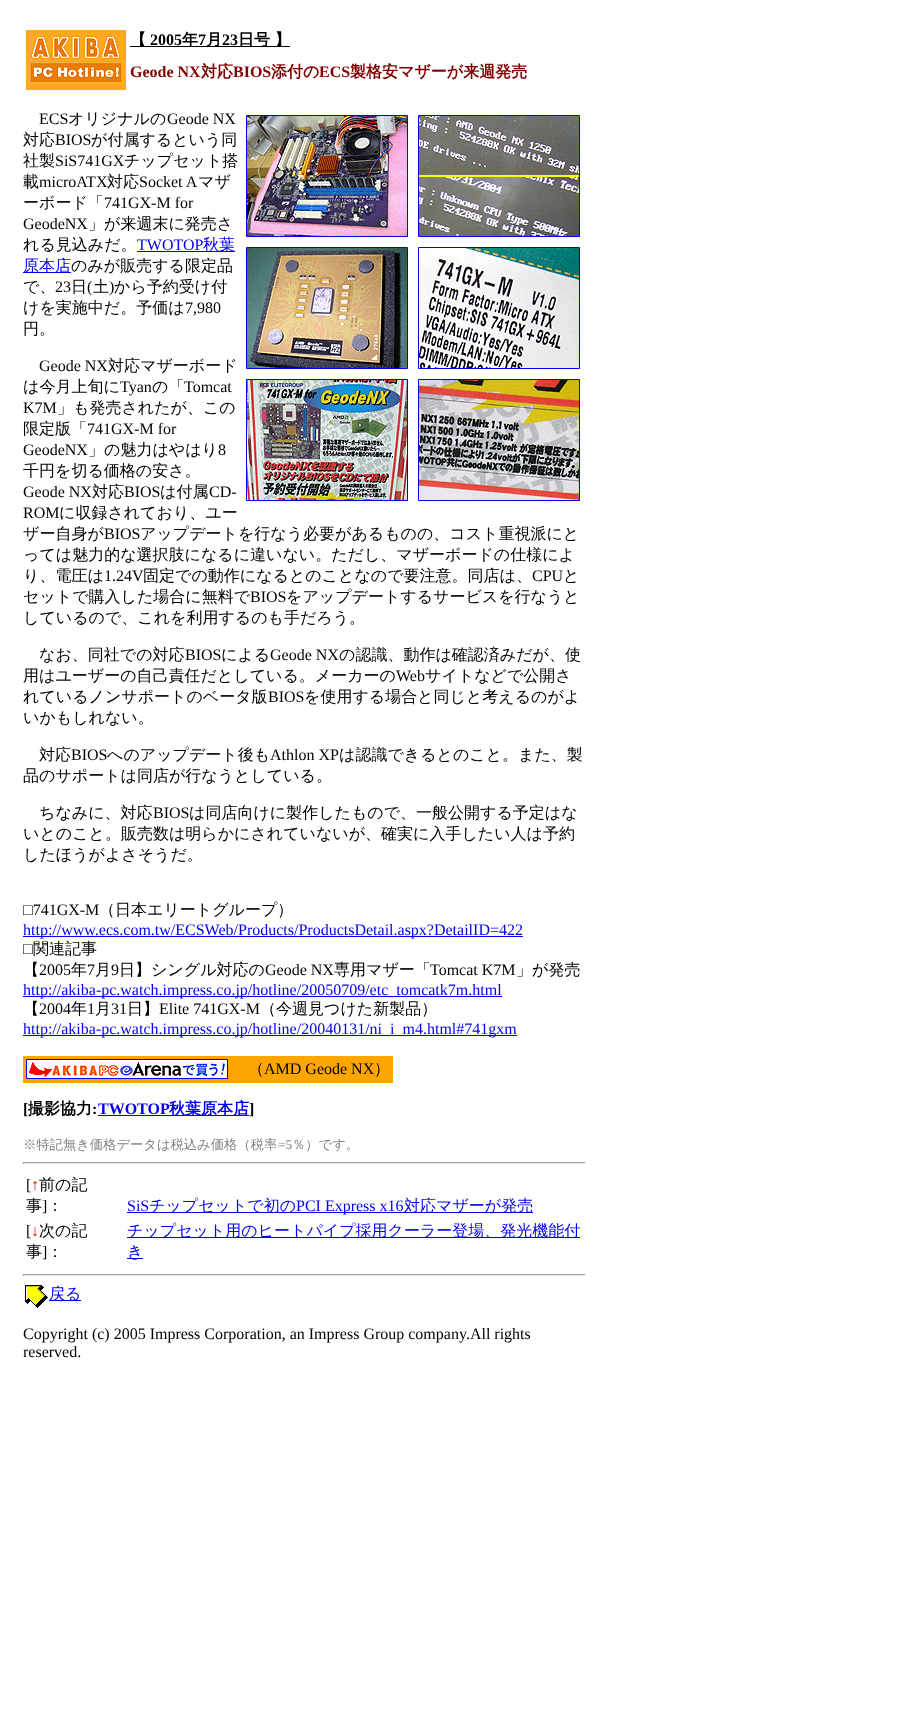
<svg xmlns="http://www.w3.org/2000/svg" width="913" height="1736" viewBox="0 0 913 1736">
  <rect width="100%" height="100%" fill="#fff"/>
  <image x="26" y="30" width="100" height="60" href="img/1.png"/>
  <path d="M130 46h160v1H130z" fill="#000"/>
  <path d="M246.5 115.5h161v121H246.5z" fill="none" stroke="#00e"/>
  <image x="247" y="116" width="160" height="120" href="img/2.png"/>
  <path d="M418.5 115.5h161v121H418.5z" fill="none" stroke="#00e"/>
  <image x="419" y="116" width="160" height="120" href="img/3.png"/>
  <path d="M246.5 247.5h161v121H246.5z" fill="none" stroke="#00e"/>
  <image x="247" y="248" width="160" height="120" href="img/4.png"/>
  <path d="M418.5 247.5h161v121H418.5z" fill="none" stroke="#00e"/>
  <image x="419" y="248" width="160" height="120" href="img/5.png"/>
  <path d="M246.5 379.5h161v121H246.5z" fill="none" stroke="#00e"/>
  <image x="247" y="380" width="160" height="120" href="img/6.png"/>
  <path d="M418.5 379.5h161v121H418.5z" fill="none" stroke="#00e"/>
  <image x="419" y="380" width="160" height="120" href="img/7.png"/>
  <path d="M137 251h98v1H137z" fill="#00e"/>
  <path d="M23 272h48v1H23z" fill="#00e"/>
  <path d="M23 936h500v1H23z" fill="#00e"/>
  <path d="M23 996h479v1H23z" fill="#00e"/>
  <path d="M23 1035h494v1H23z" fill="#00e"/>
  <path d="M23 1056h370v27H23z" fill="#ffa500"/>
  <path d="M26.5 1059.5h201v19H26.5z" fill="none" stroke="#00e"/>
  <image x="27" y="1060" width="200" height="18" href="img/8.png"/>
  <path d="M98 1115h151v1H98z" fill="#00e"/>
  <path d="M23 1162h563v1H23z" fill="#9f9f9f"/>
  <path d="M585 1162h1v2H585z" fill="#eee"/>
  <path d="M23 1163h563v1H23z" fill="#eee"/>
  <path d="M23 1162h1v2H23z" fill="#9f9f9f"/>
  <path d="M127 1212h406v1H127z" fill="#00e"/>
  <path d="M127 1237h453v1H127z" fill="#00e"/>
  <path d="M127 1258h16v1H127z" fill="#00e"/>
  <path d="M23 1274h563v1H23z" fill="#9f9f9f"/>
  <path d="M585 1274h1v2H585z" fill="#eee"/>
  <path d="M23 1275h563v1H23z" fill="#eee"/>
  <path d="M23 1274h1v2H23z" fill="#9f9f9f"/>
  <image x="25" y="1285" width="23" height="23" href="img/9.png"/>
  <path d="M49 1300h32v1H49z" fill="#00e"/>
  <text x="130" y="45" font-family="WenQuanYi Zen Hei" font-size="16" font-weight="bold" fill="#000">【</text>
  <text x="150" y="45" font-family="Liberation Serif" font-size="16" font-weight="bold" fill="#000">2005</text>
  <text x="182" y="45" font-family="WenQuanYi Zen Hei" font-size="16" font-weight="bold" fill="#000">年</text>
  <text x="198" y="45" font-family="Liberation Serif" font-size="16" font-weight="bold" fill="#000">7</text>
  <text x="206" y="45" font-family="WenQuanYi Zen Hei" font-size="16" font-weight="bold" fill="#000">月</text>
  <text x="222" y="45" font-family="Liberation Serif" font-size="16" font-weight="bold" fill="#000">23</text>
  <text x="238" y="45" font-family="WenQuanYi Zen Hei" font-size="16" font-weight="bold" fill="#000">日号 】</text>
  <text x="130" y="77" font-family="Liberation Serif" font-size="16" font-weight="bold" fill="#800000">Geode NX</text>
  <text x="201" y="77" font-family="WenQuanYi Zen Hei" font-size="16" font-weight="bold" fill="#800000">対応</text>
  <text x="233" y="77" font-family="Liberation Serif" font-size="16" font-weight="bold" fill="#800000">BIOS</text>
  <text x="271" y="77" font-family="WenQuanYi Zen Hei" font-size="16" font-weight="bold" fill="#800000">添付の</text>
  <text x="319" y="77" font-family="Liberation Serif" font-size="16" font-weight="bold" fill="#800000">ECS</text>
  <text x="350" y="77" font-family="WenQuanYi Zen Hei" font-size="16" font-weight="bold" fill="#800000">製格安マザーが来週発売</text>
  <text x="39" y="124" font-family="Liberation Serif" font-size="16" fill="#000">ECS</text>
  <text x="68" y="124" font-family="WenQuanYi Zen Hei" font-size="16" font-weight="500" fill="#000">オリジナルの</text>
  <text x="167" y="124" font-family="Liberation Serif" font-size="16" fill="#000">Geode NX</text>
  <text x="23" y="145" font-family="WenQuanYi Zen Hei" font-size="16" font-weight="500" fill="#000">対応</text>
  <text x="55" y="145" font-family="Liberation Serif" font-size="16" fill="#000">BIOS</text>
  <g font-family="WenQuanYi Zen Hei" font-size="16" font-weight="500" fill="#000">
    <text x="91" y="145">が付属するという同</text>
    <text x="23" y="166">社製</text>
  </g>
  <text x="55" y="166" font-family="Liberation Serif" font-size="16" fill="#000">SiS741GX</text>
  <g font-family="WenQuanYi Zen Hei" font-size="16" font-weight="500" fill="#000">
    <text x="124" y="166">チップセット搭</text>
    <text x="23" y="187">載</text>
  </g>
  <text x="39" y="187" font-family="Liberation Serif" font-size="16" fill="#000">microATX</text>
  <text x="107" y="187" font-family="WenQuanYi Zen Hei" font-size="16" font-weight="500" fill="#000">対応</text>
  <text x="139" y="187" font-family="Liberation Serif" font-size="16" fill="#000">Socket A</text>
  <g font-family="WenQuanYi Zen Hei" font-size="16" font-weight="500" fill="#000">
    <text x="198" y="187">マザ</text>
    <text x="23" y="208">ーボード「</text>
  </g>
  <g font-family="Liberation Serif" font-size="16" fill="#000">
    <text x="104" y="208">741GX-M for</text>
    <text x="23" y="229">GeodeNX</text>
  </g>
  <g font-family="WenQuanYi Zen Hei" font-size="16" font-weight="500" fill="#000">
    <text x="88" y="229">」が来週末に発売さ</text>
    <text x="23" y="250">れる見込みだ。</text>
  </g>
  <text x="137" y="250" font-family="Liberation Serif" font-size="16" fill="#00e">TWOTOP</text>
  <g font-family="WenQuanYi Zen Hei" font-size="16" font-weight="500" fill="#00e">
    <text x="203" y="250">秋葉</text>
    <text x="23" y="271">原本店</text>
  </g>
  <g font-family="WenQuanYi Zen Hei" font-size="16" font-weight="500" fill="#000">
    <text x="71" y="271">のみが販売する限定品</text>
    <text x="23" y="292">で、</text>
  </g>
  <text x="55" y="292" font-family="Liberation Serif" font-size="16" fill="#000">23</text>
  <text x="71" y="292" font-family="WenQuanYi Zen Hei" font-size="16" font-weight="500" fill="#000">日</text>
  <text x="87" y="292" font-family="Liberation Serif" font-size="16" fill="#000">(</text>
  <text x="93" y="292" font-family="WenQuanYi Zen Hei" font-size="16" font-weight="500" fill="#000">土</text>
  <text x="109" y="292" font-family="Liberation Serif" font-size="16" fill="#000">)</text>
  <g font-family="WenQuanYi Zen Hei" font-size="16" font-weight="500" fill="#000">
    <text x="114" y="292">から予約受け付</text>
    <text x="23" y="313">けを実施中だ。予価は</text>
  </g>
  <text x="185" y="313" font-family="Liberation Serif" font-size="16" fill="#000">7,980</text>
  <text x="23" y="334" font-family="WenQuanYi Zen Hei" font-size="16" font-weight="500" fill="#000">円。</text>
  <text x="39" y="371" font-family="Liberation Serif" font-size="16" fill="#000">Geode NX</text>
  <g font-family="WenQuanYi Zen Hei" font-size="16" font-weight="500" fill="#000">
    <text x="108" y="371">対応マザーボード</text>
    <text x="23" y="392">は今月上旬に</text>
  </g>
  <text x="120" y="392" font-family="Liberation Serif" font-size="16" fill="#000">Tyan</text>
  <text x="152" y="392" font-family="WenQuanYi Zen Hei" font-size="16" font-weight="500" fill="#000">の「</text>
  <g font-family="Liberation Serif" font-size="16" fill="#000">
    <text x="184" y="392">Tomcat</text>
    <text x="23" y="413">K7M</text>
  </g>
  <g font-family="WenQuanYi Zen Hei" font-size="16" font-weight="500" fill="#000">
    <text x="57" y="413">」も発売されたが、この</text>
    <text x="23" y="434">限定版「</text>
  </g>
  <g font-family="Liberation Serif" font-size="16" fill="#000">
    <text x="87" y="434">741GX-M for</text>
    <text x="23" y="455">GeodeNX</text>
  </g>
  <text x="88" y="455" font-family="WenQuanYi Zen Hei" font-size="16" font-weight="500" fill="#000">」の魅力はやはり</text>
  <text x="218" y="455" font-family="Liberation Serif" font-size="16" fill="#000">8</text>
  <text x="23" y="476" font-family="WenQuanYi Zen Hei" font-size="16" font-weight="500" fill="#000">千円を切る価格の安さ。</text>
  <text x="23" y="497" font-family="Liberation Serif" font-size="16" fill="#000">Geode NX</text>
  <text x="92" y="497" font-family="WenQuanYi Zen Hei" font-size="16" font-weight="500" fill="#000">対応</text>
  <text x="124" y="497" font-family="Liberation Serif" font-size="16" fill="#000">BIOS</text>
  <text x="160" y="497" font-family="WenQuanYi Zen Hei" font-size="16" font-weight="500" fill="#000">は付属</text>
  <g font-family="Liberation Serif" font-size="16" fill="#000">
    <text x="209" y="497">CD-</text>
    <text x="23" y="518">ROM</text>
  </g>
  <g font-family="WenQuanYi Zen Hei" font-size="16" font-weight="500" fill="#000">
    <text x="59" y="518">に収録されており、ユー</text>
    <text x="23" y="539">ザー自身が</text>
  </g>
  <text x="104" y="539" font-family="Liberation Serif" font-size="16" fill="#000">BIOS</text>
  <g font-family="WenQuanYi Zen Hei" font-size="16" font-weight="500" fill="#000">
    <text x="140" y="539">アップデートを行なう必要があるものの、コスト重視派にと</text>
    <text x="23" y="560">っては魅力的な選択肢になるに違いない。ただし、マザーボードの仕様によ</text>
    <text x="23" y="581">り、電圧は</text>
  </g>
  <text x="104" y="581" font-family="Liberation Serif" font-size="16" fill="#000">1.24V</text>
  <text x="143" y="581" font-family="WenQuanYi Zen Hei" font-size="16" font-weight="500" fill="#000">固定での動作になるとのことなので要注意。同店は、</text>
  <text x="532" y="581" font-family="Liberation Serif" font-size="16" fill="#000">CPU</text>
  <g font-family="WenQuanYi Zen Hei" font-size="16" font-weight="500" fill="#000">
    <text x="563" y="581">と</text>
    <text x="23" y="602">セットで購入した場合に無料で</text>
  </g>
  <text x="250" y="602" font-family="Liberation Serif" font-size="16" fill="#000">BIOS</text>
  <g font-family="WenQuanYi Zen Hei" font-size="16" font-weight="500" fill="#000">
    <text x="286" y="602">をアップデートするサービスを行なうと</text>
    <text x="23" y="623">しているので、これを利用するのも手だろう。</text>
    <text x="39" y="660">なお、同社での対応</text>
  </g>
  <text x="185" y="660" font-family="Liberation Serif" font-size="16" fill="#000">BIOS</text>
  <text x="221" y="660" font-family="WenQuanYi Zen Hei" font-size="16" font-weight="500" fill="#000">による</text>
  <text x="270" y="660" font-family="Liberation Serif" font-size="16" fill="#000">Geode NX</text>
  <g font-family="WenQuanYi Zen Hei" font-size="16" font-weight="500" fill="#000">
    <text x="339" y="660">の認識、動作は確認済みだが、使</text>
    <text x="23" y="681">用はユーザーの自己責任だとしている。メーカーの</text>
  </g>
  <text x="396" y="681" font-family="Liberation Serif" font-size="16" fill="#000">Web</text>
  <g font-family="WenQuanYi Zen Hei" font-size="16" font-weight="500" fill="#000">
    <text x="425" y="681">サイトなどで公開さ</text>
    <text x="23" y="702">れているノンサポートのベータ版</text>
  </g>
  <text x="268" y="702" font-family="Liberation Serif" font-size="16" fill="#000">BIOS</text>
  <g font-family="WenQuanYi Zen Hei" font-size="16" font-weight="500" fill="#000">
    <text x="304" y="702">を使用する場合と同じと考えるのがよ</text>
    <text x="23" y="723">いかもしれない。</text>
    <text x="39" y="760">対応</text>
  </g>
  <text x="71" y="760" font-family="Liberation Serif" font-size="16" fill="#000">BIOS</text>
  <text x="107" y="760" font-family="WenQuanYi Zen Hei" font-size="16" font-weight="500" fill="#000">へのアップデート後も</text>
  <text x="270" y="760" font-family="Liberation Serif" font-size="16" fill="#000">Athlon XP</text>
  <g font-family="WenQuanYi Zen Hei" font-size="16" font-weight="500" fill="#000">
    <text x="339" y="760">は認識できるとのこと。また、製</text>
    <text x="23" y="781">品のサポートは同店が行なうとしている。</text>
    <text x="39" y="818">ちなみに、対応</text>
  </g>
  <text x="153" y="818" font-family="Liberation Serif" font-size="16" fill="#000">BIOS</text>
  <g font-family="WenQuanYi Zen Hei" font-size="16" font-weight="500" fill="#000">
    <text x="189" y="818">は同店向けに製作したもので、一般公開する予定はな</text>
    <text x="23" y="839">いとのこと。販売数は明らかにされていないが、確実に入手したい人は予約</text>
    <text x="23" y="860">したほうがよさそうだ。</text>
  </g>
  <text x="23" y="915" font-family="Liberation Serif" font-size="16" fill="#000">□741GX-M</text>
  <text x="99" y="915" font-family="WenQuanYi Zen Hei" font-size="16" font-weight="500" fill="#000">（日本エリートグループ）</text>
  <text x="23" y="935" font-family="Liberation Serif" font-size="16" fill="#00e">http://www.ecs.com.tw/ECSWeb/Products/ProductsDetail.aspx?DetailID=422</text>
  <text x="23" y="954" font-family="Liberation Serif" font-size="16" fill="#000">□</text>
  <g font-family="WenQuanYi Zen Hei" font-size="16" font-weight="500" fill="#000">
    <text x="33" y="954">関連記事</text>
    <text x="23" y="975">【</text>
  </g>
  <text x="39" y="975" font-family="Liberation Serif" font-size="16" fill="#000">2005</text>
  <text x="71" y="975" font-family="WenQuanYi Zen Hei" font-size="16" font-weight="500" fill="#000">年</text>
  <text x="87" y="975" font-family="Liberation Serif" font-size="16" fill="#000">7</text>
  <text x="95" y="975" font-family="WenQuanYi Zen Hei" font-size="16" font-weight="500" fill="#000">月</text>
  <text x="111" y="975" font-family="Liberation Serif" font-size="16" fill="#000">9</text>
  <text x="119" y="975" font-family="WenQuanYi Zen Hei" font-size="16" font-weight="500" fill="#000">日】シングル対応の</text>
  <text x="265" y="975" font-family="Liberation Serif" font-size="16" fill="#000">Geode NX</text>
  <text x="334" y="975" font-family="WenQuanYi Zen Hei" font-size="16" font-weight="500" fill="#000">専用マザー「</text>
  <text x="430" y="975" font-family="Liberation Serif" font-size="16" fill="#000">Tomcat K7M</text>
  <text x="516" y="975" font-family="WenQuanYi Zen Hei" font-size="16" font-weight="500" fill="#000">」が発売</text>
  <text x="23" y="995" font-family="Liberation Serif" font-size="16" fill="#00e">http://akiba-pc.watch.impress.co.jp/hotline/20050709/etc_tomcatk7m.html</text>
  <text x="23" y="1014" font-family="WenQuanYi Zen Hei" font-size="16" font-weight="500" fill="#000">【</text>
  <text x="39" y="1014" font-family="Liberation Serif" font-size="16" fill="#000">2004</text>
  <text x="71" y="1014" font-family="WenQuanYi Zen Hei" font-size="16" font-weight="500" fill="#000">年</text>
  <text x="87" y="1014" font-family="Liberation Serif" font-size="16" fill="#000">1</text>
  <text x="95" y="1014" font-family="WenQuanYi Zen Hei" font-size="16" font-weight="500" fill="#000">月</text>
  <text x="111" y="1014" font-family="Liberation Serif" font-size="16" fill="#000">31</text>
  <text x="127" y="1014" font-family="WenQuanYi Zen Hei" font-size="16" font-weight="500" fill="#000">日】</text>
  <text x="159" y="1014" font-family="Liberation Serif" font-size="16" fill="#000">Elite 741GX-M</text>
  <text x="260" y="1014" font-family="WenQuanYi Zen Hei" font-size="16" font-weight="500" fill="#000">（今週見つけた新製品）</text>
  <text x="23" y="1034" font-family="Liberation Serif" font-size="16" fill="#00e">http://akiba-pc.watch.impress.co.jp/hotline/20040131/ni_i_m4.html#741gxm</text>
  <text x="248" y="1074" font-family="WenQuanYi Zen Hei" font-size="16" font-weight="500" fill="#000">（</text>
  <text x="264" y="1074" font-family="Liberation Serif" font-size="16" fill="#000">AMD Geode NX</text>
  <text x="374" y="1074" font-family="WenQuanYi Zen Hei" font-size="16" font-weight="500" fill="#000">）</text>
  <text x="23" y="1114" font-family="Liberation Serif" font-size="16" font-weight="bold" fill="#000">[</text>
  <text x="28" y="1114" font-family="WenQuanYi Zen Hei" font-size="16" font-weight="bold" fill="#000">撮影協力</text>
  <text x="92" y="1114" font-family="Liberation Serif" font-size="16" font-weight="bold" fill="#000">:</text>
  <text x="98" y="1114" font-family="Liberation Serif" font-size="16" font-weight="bold" fill="#00e">TWOTOP</text>
  <text x="169" y="1114" font-family="WenQuanYi Zen Hei" font-size="16" font-weight="bold" fill="#00e">秋葉原本店</text>
  <text x="249" y="1114" font-family="Liberation Serif" font-size="16" font-weight="bold" fill="#000">]</text>
  <text x="23" y="1149" font-family="WenQuanYi Zen Hei" font-size="13.3" font-weight="500" fill="#808080">※特記無き価格データは税込み価格（税率</text>
  <text x="278" y="1149" font-family="Liberation Serif" font-size="13.3" fill="#808080">=5</text>
  <text x="292" y="1149" font-family="WenQuanYi Zen Hei" font-size="13.3" font-weight="500" fill="#808080">％）です。</text>
  <text x="26" y="1190" font-family="Liberation Serif" font-size="16" fill="#000">[</text>
  <text x="31" y="1190" font-family="Liberation Serif" font-size="16" fill="#f00">↑</text>
  <g font-family="WenQuanYi Zen Hei" font-size="16" font-weight="500" fill="#000">
    <text x="39" y="1190">前の記</text>
    <text x="26" y="1211">事</text>
  </g>
  <text x="42" y="1211" font-family="Liberation Serif" font-size="16" fill="#000">]</text>
  <text x="47" y="1211" font-family="WenQuanYi Zen Hei" font-size="16" font-weight="500" fill="#000">：</text>
  <text x="127" y="1211" font-family="Liberation Serif" font-size="16" fill="#00e">SiS</text>
  <text x="149" y="1211" font-family="WenQuanYi Zen Hei" font-size="16" font-weight="500" fill="#00e">チップセットで初の</text>
  <text x="296" y="1211" font-family="Liberation Serif" font-size="16" fill="#00e">PCI Express x16</text>
  <text x="404" y="1211" font-family="WenQuanYi Zen Hei" font-size="16" font-weight="500" fill="#00e">対応マザーが発売</text>
  <text x="26" y="1236" font-family="Liberation Serif" font-size="16" fill="#000">[</text>
  <text x="31" y="1236" font-family="Liberation Serif" font-size="16" fill="#f00">↓</text>
  <g font-family="WenQuanYi Zen Hei" font-size="16" font-weight="500" fill="#000">
    <text x="39" y="1236">次の記</text>
    <text x="26" y="1257">事</text>
  </g>
  <text x="42" y="1257" font-family="Liberation Serif" font-size="16" fill="#000">]</text>
  <text x="47" y="1257" font-family="WenQuanYi Zen Hei" font-size="16" font-weight="500" fill="#000">：</text>
  <g font-family="WenQuanYi Zen Hei" font-size="16" font-weight="500" fill="#00e">
    <text x="127" y="1236">チップセット用のヒートパイプ採用クーラー登場、発光機能付</text>
    <text x="127" y="1257">き</text>
    <text x="49" y="1299">戻る</text>
  </g>
  <g font-family="Liberation Serif" font-size="16" fill="#000">
    <text x="23" y="1339">Copyright (c) 2005 Impress Corporation, an Impress Group company.All rights</text>
    <text x="23" y="1357">reserved.</text>
  </g>
</svg>
